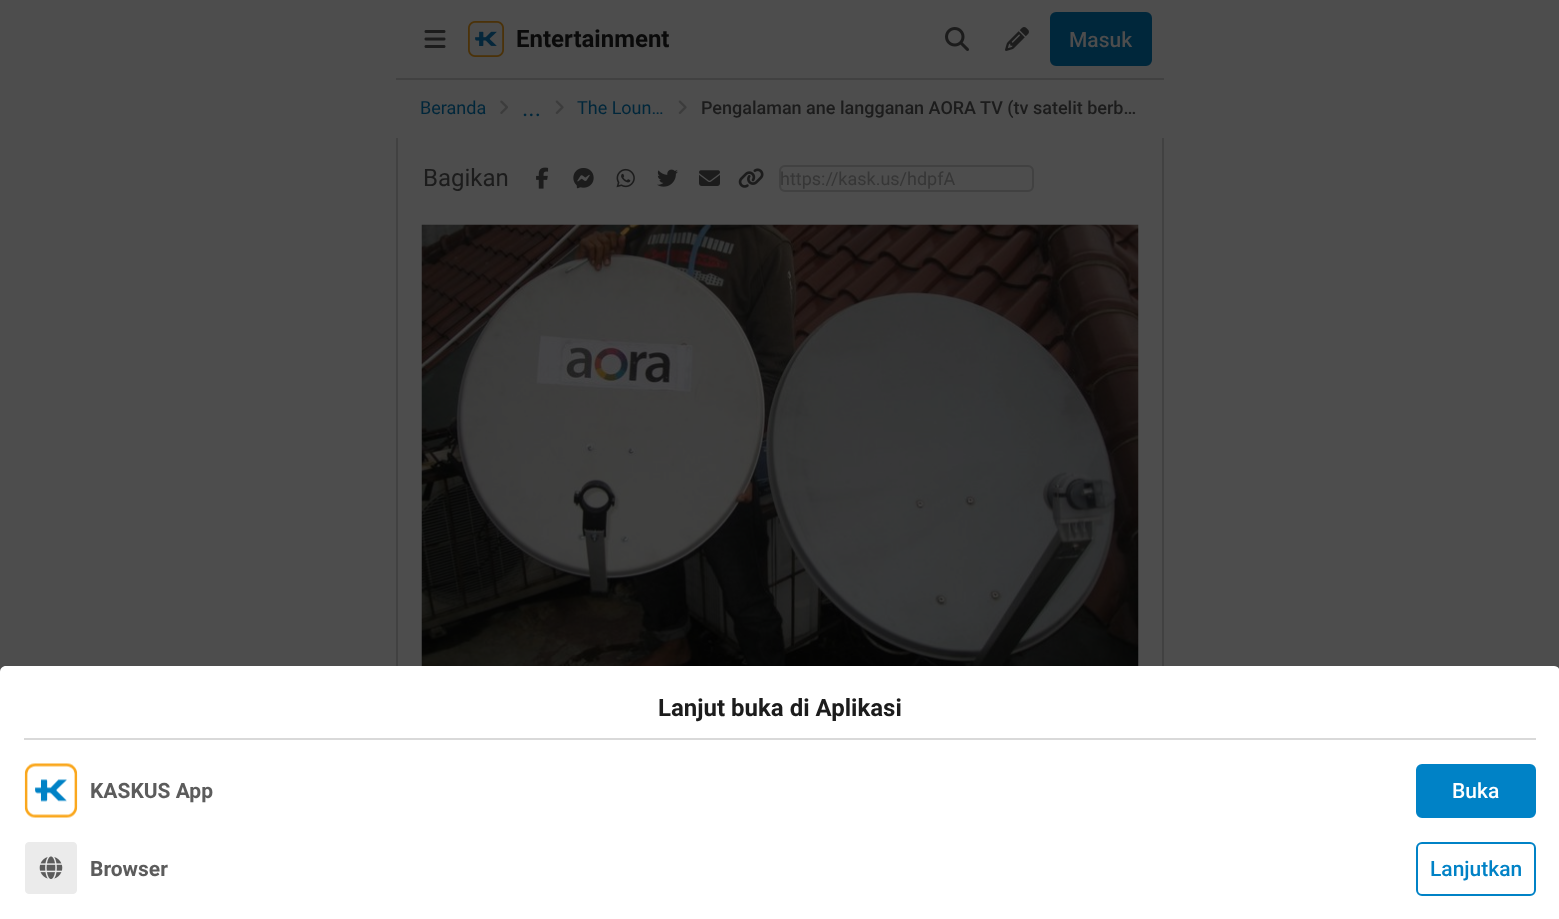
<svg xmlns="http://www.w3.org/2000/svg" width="1559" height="919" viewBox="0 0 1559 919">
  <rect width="100%" height="100%" fill="#4d4d4d"/>
  <path d="M397 31h766v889H397z" fill="none" stroke="#414141" stroke-width="2"/>
  <path d="M396 30h768v48H396z" fill="#4d4d4d"/>
  <path d="M396 78h768v2H396z" fill="#414141"/>
  <image x="424" y="30" width="22" height="18" href="img/1.png"/>
  <image x="468" y="21" width="36" height="36" href="img/2.png"/>
  <image x="945" y="27" width="24" height="24" href="img/3.png"/>
  <image x="1005" y="27" width="24" height="24" href="img/4.png"/>
  <rect x="1051" y="13" width="100" height="52" rx="5" fill="#00273b" stroke="#00273b" stroke-width="2"/>
  <path d="M396 80h768v58H396z" fill="#4d4d4d"/>
  <image x="500" y="100" width="8" height="14" href="img/5.png"/>
  <image x="555" y="100" width="9" height="14" href="img/6.png"/>
  <image x="678" y="100" width="9" height="14" href="img/6.png"/>
  <image x="536" y="167" width="13" height="22" href="img/7.png"/>
  <image x="573" y="168" width="21" height="21" href="img/8.png"/>
  <image x="616" y="168" width="19" height="20" href="img/9.png"/>
  <image x="657" y="169" width="21" height="18" href="img/10.png"/>
  <image x="699" y="170" width="21" height="16" href="img/11.png"/>
  <image x="738" y="168" width="26" height="20" href="img/12.png"/>
  <rect x="780" y="166" width="253" height="25" rx="5" fill="none" stroke="#414141" stroke-width="2"/>
  <image x="421" y="224" width="718" height="442" href="img/13.png"/>
  <path d="M6 666H1554C1557.5 666 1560 668.5 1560 672V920H0V672C0 668.5 2.5 666 6 666Z" fill="#fff"/>
  <path d="M24 738h1512v2H24z" fill="#d9d9d9"/>
  <image x="24" y="763" width="54" height="55" href="img/14.png"/>
  <rect x="1417" y="765" width="118" height="52" rx="5" fill="#0082c6" stroke="#0082c6" stroke-width="2"/>
  <image x="25" y="842" width="52" height="52" href="img/15.png"/>
  <rect x="1417" y="843" width="118" height="52" rx="5" fill="none" stroke="#0082c6" stroke-width="2"/>
  <text x="516" y="47" font-family="Roboto" font-size="24" font-weight="bold" fill="#0a0a0a">Entertainment</text>
  <text x="1069" y="47" font-family="Roboto" font-size="21" font-weight="500" fill="#4d4d4d">Masuk</text>
  <text x="420" y="114" font-family="Roboto" font-size="18" fill="#00273b">Beranda</text>
  <text x="522" y="116" font-family="Roboto" font-size="24" fill="#00273b">...</text>
  <text x="577" y="114" font-family="Roboto" font-size="18" fill="#00273b">The Loun…</text>
  <text x="701" y="114" font-family="Roboto" font-size="18" font-weight="500" fill="#1c1c1c">Pengalaman ane langganan AORA TV (tv satelit berb…</text>
  <text x="423" y="186" font-family="Roboto" font-size="24" fill="#1c1c1c">Bagikan</text>
  <text x="780" y="185" font-family="Roboto" font-size="18" fill="#363636">https://kask.us/hdpfA</text>
  <text x="658" y="716" font-family="Roboto" font-size="24" font-weight="bold" fill="#1c1c1c">Lanjut buka di Aplikasi</text>
  <text x="90" y="798" font-family="Roboto" font-size="21" font-weight="bold" fill="#5c5c5c">KASKUS App</text>
  <text x="1452" y="798" font-family="Roboto" font-size="21" font-weight="500" fill="#fff">Buka</text>
  <text x="90" y="876" font-family="Roboto" font-size="21" font-weight="bold" fill="#5c5c5c">Browser</text>
  <text x="1430" y="876" font-family="Roboto" font-size="21" font-weight="500" fill="#0082c6">Lanjutkan</text>
</svg>
